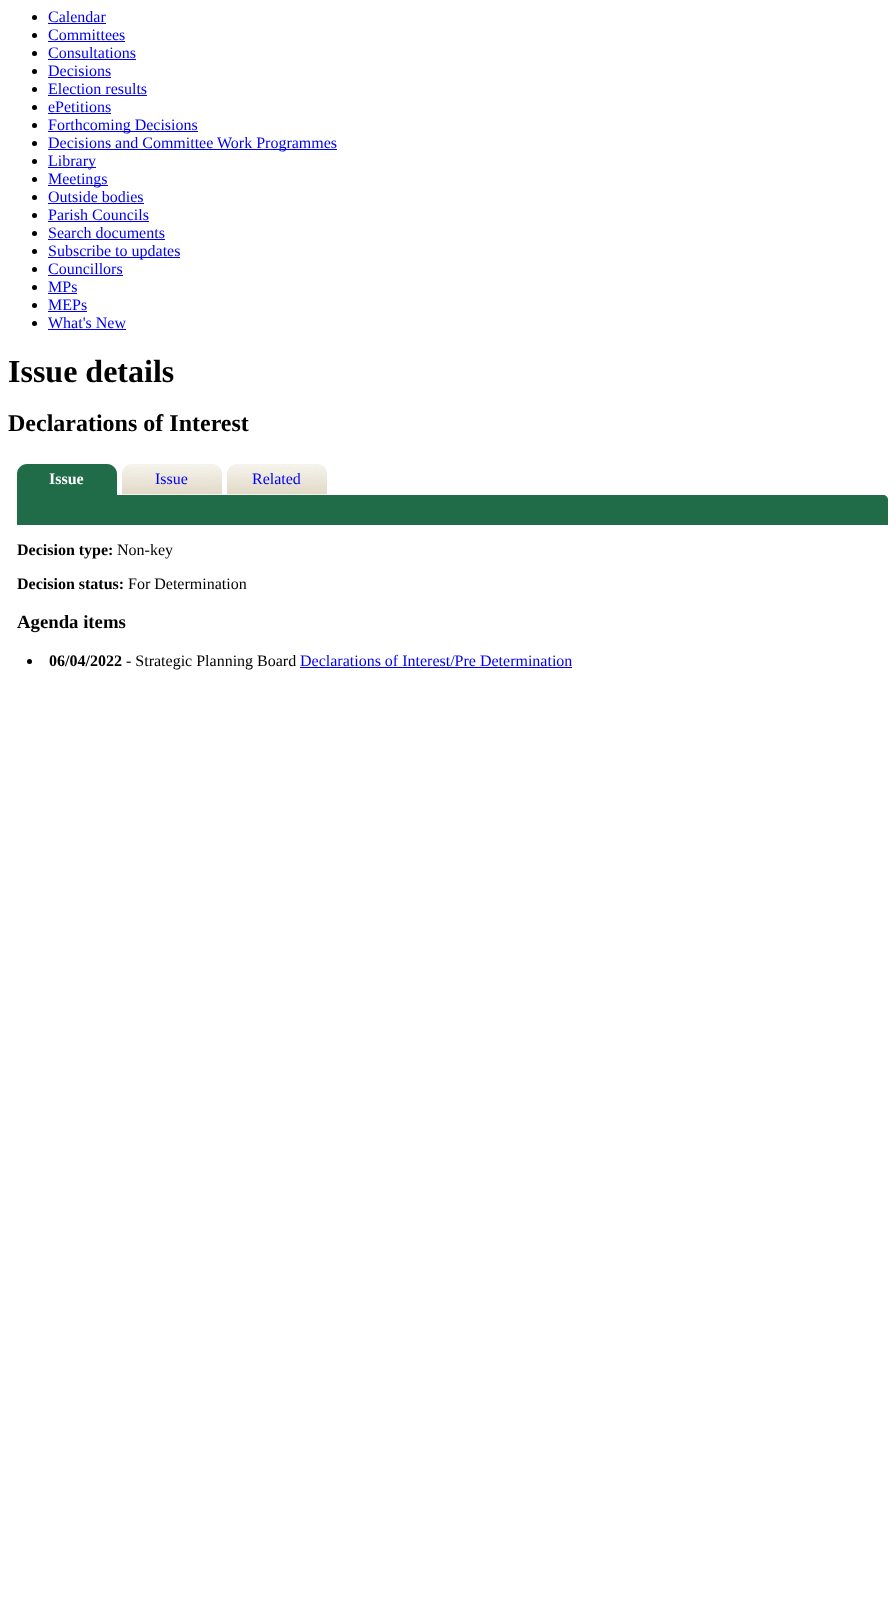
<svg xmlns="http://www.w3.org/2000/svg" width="896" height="1600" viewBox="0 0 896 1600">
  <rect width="100%" height="100%" fill="#fff"/>
  <circle cx="34.5" cy="17.5" r="2.5" fill="#000"/>
  <path d="M48 23h58v1H48z" fill="#00e"/>
  <circle cx="34.5" cy="35.5" r="2.5" fill="#000"/>
  <path d="M48 41h77v1H48z" fill="#00e"/>
  <circle cx="34.5" cy="53.5" r="2.5" fill="#000"/>
  <path d="M48 59h88v1H48z" fill="#00e"/>
  <circle cx="34.5" cy="71.5" r="2.5" fill="#000"/>
  <path d="M48 77h63v1H48z" fill="#00e"/>
  <circle cx="34.5" cy="89.5" r="2.5" fill="#000"/>
  <path d="M48 95h99v1H48z" fill="#00e"/>
  <circle cx="34.5" cy="107.5" r="2.5" fill="#000"/>
  <path d="M48 113h63v1H48z" fill="#00e"/>
  <circle cx="34.5" cy="125.5" r="2.5" fill="#000"/>
  <path d="M48 131h150v1H48z" fill="#00e"/>
  <circle cx="34.5" cy="143.5" r="2.5" fill="#000"/>
  <path d="M48 149h289v1H48z" fill="#00e"/>
  <circle cx="34.5" cy="161.5" r="2.5" fill="#000"/>
  <path d="M48 167h48v1H48z" fill="#00e"/>
  <circle cx="34.5" cy="179.5" r="2.5" fill="#000"/>
  <path d="M48 185h60v1H48z" fill="#00e"/>
  <circle cx="34.5" cy="197.5" r="2.5" fill="#000"/>
  <path d="M48 203h96v1H48z" fill="#00e"/>
  <circle cx="34.5" cy="215.5" r="2.5" fill="#000"/>
  <path d="M48 221h101v1H48z" fill="#00e"/>
  <circle cx="34.5" cy="233.5" r="2.5" fill="#000"/>
  <path d="M48 239h117v1H48z" fill="#00e"/>
  <circle cx="34.5" cy="251.5" r="2.5" fill="#000"/>
  <path d="M48 257h132v1H48z" fill="#00e"/>
  <circle cx="34.5" cy="269.5" r="2.5" fill="#000"/>
  <path d="M48 275h75v1H48z" fill="#00e"/>
  <circle cx="34.5" cy="287.5" r="2.5" fill="#000"/>
  <path d="M48 293h29v1H48z" fill="#00e"/>
  <circle cx="34.5" cy="305.5" r="2.5" fill="#000"/>
  <path d="M48 311h39v1H48z" fill="#00e"/>
  <circle cx="34.5" cy="323.5" r="2.5" fill="#000"/>
  <path d="M48 329h78v1H48z" fill="#00e"/>
  <path d="M27 464H107C112.5 464 117 468.5 117 474V495H17V474C17 468.5 21.5 464 27 464Z" fill="#206c49"/>
  <path d="M132 464H212C217.5 464 222 468.5 222 474V495H122V474C122 468.5 126.5 464 132 464Z" fill="#f3f3f3"/>
  <image x="122" y="464" width="100" height="31" href="img/1.png"/>
  <path d="M237 464H317C322.5 464 327 468.5 327 474V495H227V474C227 468.5 231.5 464 237 464Z" fill="#f3f3f3"/>
  <image x="227" y="464" width="100" height="31" href="img/1.png"/>
  <path d="M17 495H883C886 495 888 497 888 500V525H17Z" fill="#206c49"/>
  <circle cx="29.5" cy="661.5" r="2.5" fill="#000"/>
  <path d="M300 667h272v1H300z" fill="#00e"/>
  <g font-family="Liberation Serif" font-size="16" fill="#00e">
    <text x="48" y="22">Calendar</text>
    <text x="48" y="40">Committees</text>
    <text x="48" y="58">Consultations</text>
    <text x="48" y="76">Decisions</text>
    <text x="48" y="94">Election results</text>
    <text x="48" y="112">ePetitions</text>
    <text x="48" y="130">Forthcoming Decisions</text>
    <text x="48" y="148">Decisions and Committee Work Programmes</text>
    <text x="48" y="166">Library</text>
    <text x="48" y="184">Meetings</text>
    <text x="48" y="202">Outside bodies</text>
    <text x="48" y="220">Parish Councils</text>
    <text x="48" y="238">Search documents</text>
    <text x="48" y="256">Subscribe to updates</text>
    <text x="48" y="274">Councillors</text>
    <text x="48" y="292">MPs</text>
    <text x="48" y="310">MEPs</text>
    <text x="48" y="328">What's New</text>
  </g>
  <text x="8" y="382" font-family="Liberation Serif" font-size="32" font-weight="bold" fill="#000">Issue details</text>
  <text x="8" y="431" font-family="Liberation Serif" font-size="24" font-weight="bold" fill="#000">Declarations of Interest</text>
  <text x="49" y="484" font-family="Liberation Serif" font-size="16" font-weight="bold" fill="#fff">Issue</text>
  <g font-family="Liberation Serif" font-size="16" fill="#00e">
    <text x="155" y="484">Issue</text>
    <text x="252" y="484">Related</text>
  </g>
  <text x="17" y="555" font-family="Liberation Serif" font-size="16" font-weight="bold" fill="#000">Decision type:</text>
  <text x="117" y="555" font-family="Liberation Serif" font-size="16" fill="#000">Non-key</text>
  <text x="17" y="589" font-family="Liberation Serif" font-size="16" font-weight="bold" fill="#000">Decision status:</text>
  <text x="128" y="589" font-family="Liberation Serif" font-size="16" fill="#000">For Determination</text>
  <text x="17" y="628" font-family="Liberation Serif" font-size="18.75" font-weight="bold" fill="#000">Agenda items</text>
  <text x="49" y="666" font-family="Liberation Serif" font-size="16" font-weight="bold" fill="#000">06/04/2022</text>
  <text x="126" y="666" font-family="Liberation Serif" font-size="16" fill="#000">- Strategic Planning Board</text>
  <text x="300" y="666" font-family="Liberation Serif" font-size="16" fill="#00e">Declarations of Interest/Pre Determination</text>
</svg>
